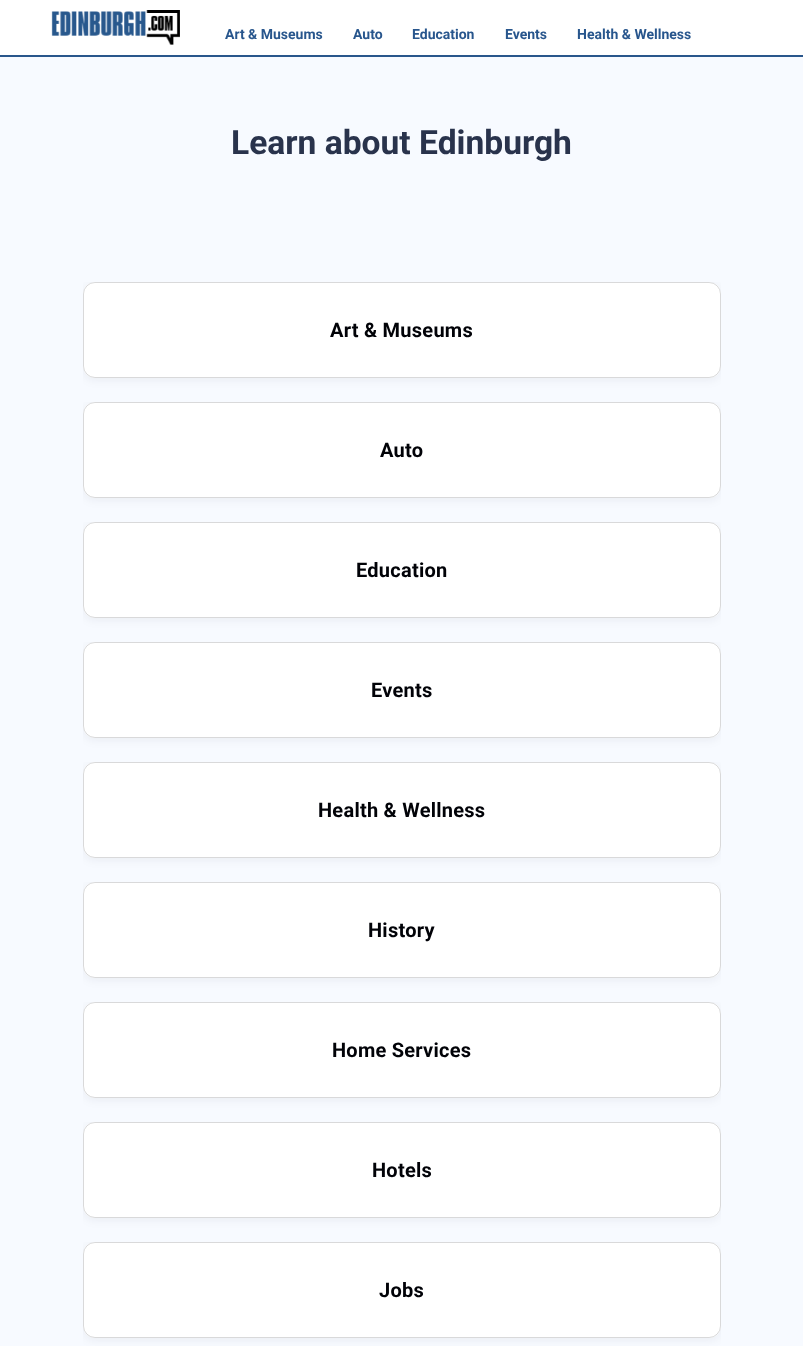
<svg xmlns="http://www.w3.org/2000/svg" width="803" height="1346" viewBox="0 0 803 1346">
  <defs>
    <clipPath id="clip1"><path d="M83 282h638v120H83z"/></clipPath>
    <clipPath id="clip2"><path d="M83 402h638v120H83z"/></clipPath>
    <clipPath id="clip3"><path d="M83 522h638v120H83z"/></clipPath>
    <clipPath id="clip4"><path d="M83 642h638v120H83z"/></clipPath>
    <clipPath id="clip5"><path d="M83 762h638v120H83z"/></clipPath>
    <clipPath id="clip6"><path d="M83 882h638v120H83z"/></clipPath>
    <clipPath id="clip7"><path d="M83 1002h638v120H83z"/></clipPath>
    <clipPath id="clip8"><path d="M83 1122h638v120H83z"/></clipPath>
    <clipPath id="clip9"><path d="M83 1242h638v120H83z"/></clipPath>
  </defs>
  <rect width="100%" height="100%" fill="#f7faff"/>
  <path d="M0 0h803v55H0z" fill="#fff"/>
  <path d="M0 55h803v2H0z" fill="#29568b"/>
  <image x="51" y="10" width="129" height="35" href="img/1.png"/>
  <g clip-path="url(#clip1)">
    <rect x="83" y="284" width="638" height="96" rx="12" fill="#0f172a0f" filter="blur(5px)"/>
  </g>
  <rect x="83" y="282" width="638" height="96" rx="12" fill="#fff"/>
  <rect x="83.5" y="282.5" width="637" height="95" rx="11.5" fill="none" stroke="#01030a26"/>
  <g clip-path="url(#clip2)">
    <rect x="83" y="404" width="638" height="96" rx="12" fill="#0f172a0f" filter="blur(5px)"/>
  </g>
  <rect x="83" y="402" width="638" height="96" rx="12" fill="#fff"/>
  <rect x="83.5" y="402.5" width="637" height="95" rx="11.5" fill="none" stroke="#01030a26"/>
  <g clip-path="url(#clip3)">
    <rect x="83" y="524" width="638" height="96" rx="12" fill="#0f172a0f" filter="blur(5px)"/>
  </g>
  <rect x="83" y="522" width="638" height="96" rx="12" fill="#fff"/>
  <rect x="83.5" y="522.5" width="637" height="95" rx="11.5" fill="none" stroke="#01030a26"/>
  <g clip-path="url(#clip4)">
    <rect x="83" y="644" width="638" height="96" rx="12" fill="#0f172a0f" filter="blur(5px)"/>
  </g>
  <rect x="83" y="642" width="638" height="96" rx="12" fill="#fff"/>
  <rect x="83.5" y="642.5" width="637" height="95" rx="11.5" fill="none" stroke="#01030a26"/>
  <g clip-path="url(#clip5)">
    <rect x="83" y="764" width="638" height="96" rx="12" fill="#0f172a0f" filter="blur(5px)"/>
  </g>
  <rect x="83" y="762" width="638" height="96" rx="12" fill="#fff"/>
  <rect x="83.5" y="762.5" width="637" height="95" rx="11.5" fill="none" stroke="#01030a26"/>
  <g clip-path="url(#clip6)">
    <rect x="83" y="884" width="638" height="96" rx="12" fill="#0f172a0f" filter="blur(5px)"/>
  </g>
  <rect x="83" y="882" width="638" height="96" rx="12" fill="#fff"/>
  <rect x="83.5" y="882.5" width="637" height="95" rx="11.5" fill="none" stroke="#01030a26"/>
  <g clip-path="url(#clip7)">
    <rect x="83" y="1004" width="638" height="96" rx="12" fill="#0f172a0f" filter="blur(5px)"/>
  </g>
  <rect x="83" y="1002" width="638" height="96" rx="12" fill="#fff"/>
  <rect x="83.5" y="1002.5" width="637" height="95" rx="11.5" fill="none" stroke="#01030a26"/>
  <g clip-path="url(#clip8)">
    <rect x="83" y="1124" width="638" height="96" rx="12" fill="#0f172a0f" filter="blur(5px)"/>
  </g>
  <rect x="83" y="1122" width="638" height="96" rx="12" fill="#fff"/>
  <rect x="83.5" y="1122.5" width="637" height="95" rx="11.5" fill="none" stroke="#01030a26"/>
  <g clip-path="url(#clip9)">
    <rect x="83" y="1244" width="638" height="96" rx="12" fill="#0f172a0f" filter="blur(5px)"/>
  </g>
  <rect x="83" y="1242" width="638" height="96" rx="12" fill="#fff"/>
  <rect x="83.5" y="1242.5" width="637" height="95" rx="11.5" fill="none" stroke="#01030a26"/>
  <g font-family="Roboto" font-size="14" font-weight="bold" fill="#28568d">
    <text x="225" y="39">Art &amp; Museums</text>
    <text x="353" y="39">Auto</text>
    <text x="412" y="39">Education</text>
    <text x="505" y="39">Events</text>
    <text x="577" y="39">Health &amp; Wellness</text>
  </g>
  <text x="231" y="154" font-family="Roboto" font-size="33.6" font-weight="bold" fill="#29334c">Learn about Edinburgh</text>
  <g font-family="Roboto" font-size="20" font-weight="bold" letter-spacing="0.25" fill="#010207">
    <text x="330" y="337">Art &amp; Museums</text>
    <text x="380" y="457">Auto</text>
    <text x="356" y="577">Education</text>
    <text x="371" y="697">Events</text>
    <text x="318" y="817">Health &amp; Wellness</text>
    <text x="368" y="937">History</text>
    <text x="332" y="1057">Home Services</text>
    <text x="372" y="1177">Hotels</text>
    <text x="379" y="1297">Jobs</text>
  </g>
</svg>
